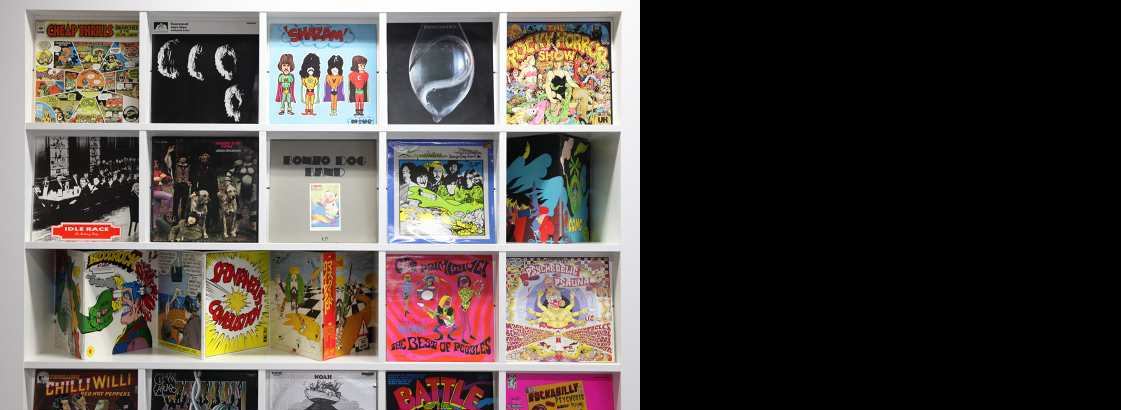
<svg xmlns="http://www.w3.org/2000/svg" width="1121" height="410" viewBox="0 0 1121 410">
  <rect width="100%" height="100%" fill="#000"/>
  <image x="0" y="0" width="640" height="410" href="img/1.png"/>
</svg>
